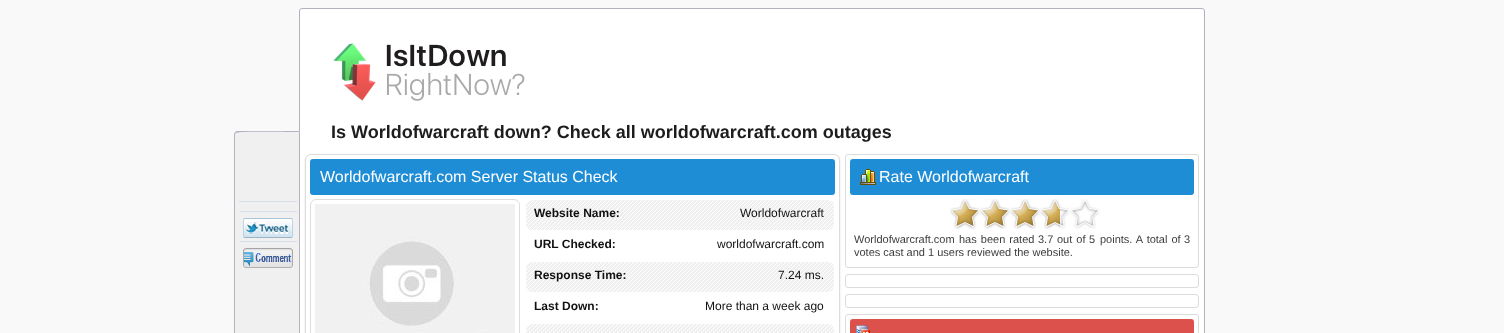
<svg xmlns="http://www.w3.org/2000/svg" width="1504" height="333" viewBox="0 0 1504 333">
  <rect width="100%" height="100%" fill="#f9f9f9"/>
  <rect x="299.5" y="8.5" width="905" height="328" rx="2.5" fill="#fff" stroke="#b7b0bf"/>
  <path d="M237 131H300V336H237C235.5 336 234 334.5 234 333V134C234 132.5 235.5 131 237 131Z" fill="#f0f0f0"/>
  <path d="M237 131L235 132L236 133C237 131 292 132 299 132L300 131Z" fill="#b7b0bf"/>
  <path d="M300 131L299 132V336L300 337Z" fill="#b7b1bf"/>
  <path d="M234 134V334L235 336L236 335L235 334V134L236 133L235 132Z" fill="#b7b0bf"/>
  <path d="M239 201h58v1H239z" fill="#d8dfea"/>
  <path d="M240 211h57v1H240z" fill="#d8dfea"/>
  <path d="M240 241h57v1H240z" fill="#d8dfea"/>
  <image x="243" y="218" width="50" height="20" href="img/1.png"/>
  <image x="243" y="248" width="50" height="20" href="img/2.png"/>
  <image x="333" y="43" width="192" height="58" href="img/3.png"/>
  <rect x="305" y="155" width="535" height="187" rx="6" fill="#e5e5e5" filter="blur(1px)"/>
  <rect x="305.5" y="154.5" width="534" height="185" rx="5.5" fill="#fff" stroke="#dcdcdc"/>
  <rect x="310" y="159" width="525" height="36" rx="3" fill="#1f8dd6"/>
  <rect x="310.5" y="199.5" width="209" height="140" rx="5.5" fill="none" stroke="#ddd"/>
  <image x="315" y="204" width="200" height="129" href="img/4.png"/>
  <image x="526" y="200" width="308" height="30" href="img/5.png"/>
  <image x="526" y="262" width="308" height="30" href="img/5.png"/>
  <image x="526" y="324" width="308" height="9" href="img/6.png"/>
  <rect x="845.5" y="154.5" width="353" height="113" rx="2.5" fill="none" stroke="#dcdcdc"/>
  <rect x="850" y="159" width="344" height="36" rx="3" fill="#1f8dd6"/>
  <image x="860" y="169" width="16" height="16" href="img/7.png"/>
  <image x="1060" y="199" width="40" height="30" href="img/8.png"/>
  <image x="950" y="199" width="110" height="30" href="img/9.png"/>
  <rect x="845.5" y="274.5" width="353" height="13" rx="2.5" fill="none" stroke="#dcdcdc"/>
  <rect x="845.5" y="294.5" width="353" height="13" rx="2.5" fill="none" stroke="#dcdcdc"/>
  <rect x="845.5" y="314.5" width="353" height="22" rx="2.5" fill="none" stroke="#dcdcdc"/>
  <rect x="850" y="319" width="344" height="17" rx="3" fill="#dd514c"/>
  <image x="856" y="325" width="14" height="8" href="img/10.png"/>
  <text x="331" y="138" font-family="Liberation Sans" font-size="18" font-weight="bold" fill="#1e1d1e">Is Worldofwarcraft down? Check all worldofwarcraft.com outages</text>
  <text x="320" y="182" font-family="Liberation Sans" font-size="16" fill="#fff">Worldofwarcraft.com Server Status Check</text>
  <text x="534" y="217" font-family="Liberation Sans" font-size="12" font-weight="bold" fill="#111">Website Name:</text>
  <text x="740" y="217" font-family="Liberation Sans" font-size="12" fill="#111">Worldofwarcraft</text>
  <text x="534" y="248" font-family="Liberation Sans" font-size="12" font-weight="bold" fill="#111">URL Checked:</text>
  <text x="717" y="248" font-family="Liberation Sans" font-size="12" fill="#111">worldofwarcraft.com</text>
  <text x="534" y="279" font-family="Liberation Sans" font-size="12" font-weight="bold" fill="#111">Response Time:</text>
  <text x="778" y="279" font-family="Liberation Sans" font-size="12" fill="#111">7.24 ms.</text>
  <text x="534" y="310" font-family="Liberation Sans" font-size="12" font-weight="bold" fill="#111">Last Down:</text>
  <text x="705" y="310" font-family="Liberation Sans" font-size="12" fill="#111">More than a week ago</text>
  <text x="879" y="182" font-family="Liberation Sans" font-size="16" fill="#fff">Rate Worldofwarcraft</text>
  <g font-family="Liberation Sans" font-size="11" fill="#3d3d3d">
    <text x="854" y="243">Worldofwarcraft.com</text>
    <text x="959" y="243" word-spacing="1">has been rated</text>
    <text x="1038" y="243">3.7</text>
    <text x="1057" y="243" word-spacing="1">out of</text>
    <text x="1089" y="243">5</text>
    <text x="1100" y="243" word-spacing="1">points. A total of</text>
    <text x="1184" y="243">3</text>
    <text x="854" y="256">votes cast and 1 users reviewed the website.</text>
  </g>
</svg>
